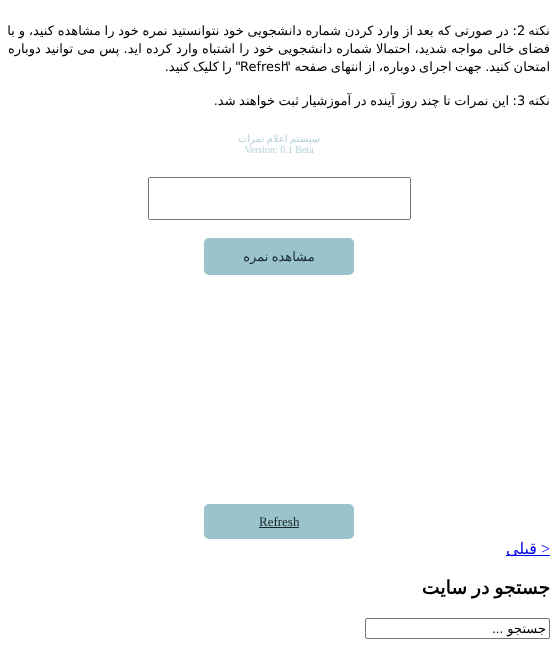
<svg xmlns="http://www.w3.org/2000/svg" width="558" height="657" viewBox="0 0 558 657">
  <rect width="100%" height="100%" fill="#fff"/>
  <image x="148" y="134" width="263" height="141" href="img/1.png"/>
  <rect x="204" y="504" width="150" height="35" rx="5" fill="#9bc3cb"/>
  <path d="M259 527h40v1H259z" fill="#17282c"/>
  <path d="M506 555h44v1H506z" fill="#00e"/>
  <rect x="365.5" y="618.5" width="184" height="20" rx="1.5" fill="none" stroke="#767676"/>
  <g font-family="DejaVu Sans" font-size="13" direction="rtl" fill="#000">
    <text x="517" y="35" word-spacing="-0.3">: در صورتی که بعد از وارد کردن شماره دانشجویی خود نتوانستید نمره خود را مشاهده کنید، و با</text>
    <text x="550" y="35">نکته</text>
  </g>
  <text x="517" y="35" font-family="DejaVu Sans" font-size="13" fill="#000">2</text>
  <g font-family="DejaVu Sans" font-size="13" direction="rtl" fill="#000">
    <text x="550" y="53">فضای خالی مواجه شدید، احتمالا شماره دانشجویی خود را اشتباه وارد کرده اید. پس می توانید دوباره</text>
    <text x="241" y="71" word-spacing="-1">" را کلیک کنید.</text>
  </g>
  <text x="240" y="71" font-family="DejaVu Sans" font-size="13" fill="#000">Refresh</text>
  <g font-family="DejaVu Sans" font-size="13" direction="rtl" fill="#000">
    <text x="550" y="71" word-spacing="-0.75">امتحان کنید. جهت اجرای دوباره، از انتهای صفحه "</text>
    <text x="517" y="105" word-spacing="-0.6">: این نمرات تا چند روز آینده در آموزشیار ثبت خواهند شد.</text>
    <text x="550" y="105">نکته</text>
  </g>
  <text x="517" y="105" font-family="DejaVu Sans" font-size="13" fill="#000">3</text>
  <text x="259" y="526" font-family="Liberation Serif" font-size="13" fill="#17282c">Refresh</text>
  <text x="550" y="554" font-family="Liberation Serif" font-size="16" direction="rtl" fill="#00e">&lt;</text>
  <text x="537" y="554" font-family="DejaVu Sans" font-size="16" direction="rtl" fill="#00e">قبلی</text>
  <text x="550" y="594" word-spacing="-1" font-family="DejaVu Sans" font-size="18.75" font-weight="bold" direction="rtl" fill="#000">جستجو در سایت</text>
  <text x="546" y="633" font-family="DejaVu Sans" font-size="13" direction="rtl" fill="#000">جستجو</text>
  <text x="503" y="633" font-family="Liberation Sans" font-size="13" direction="rtl" fill="#000">...</text>
</svg>
